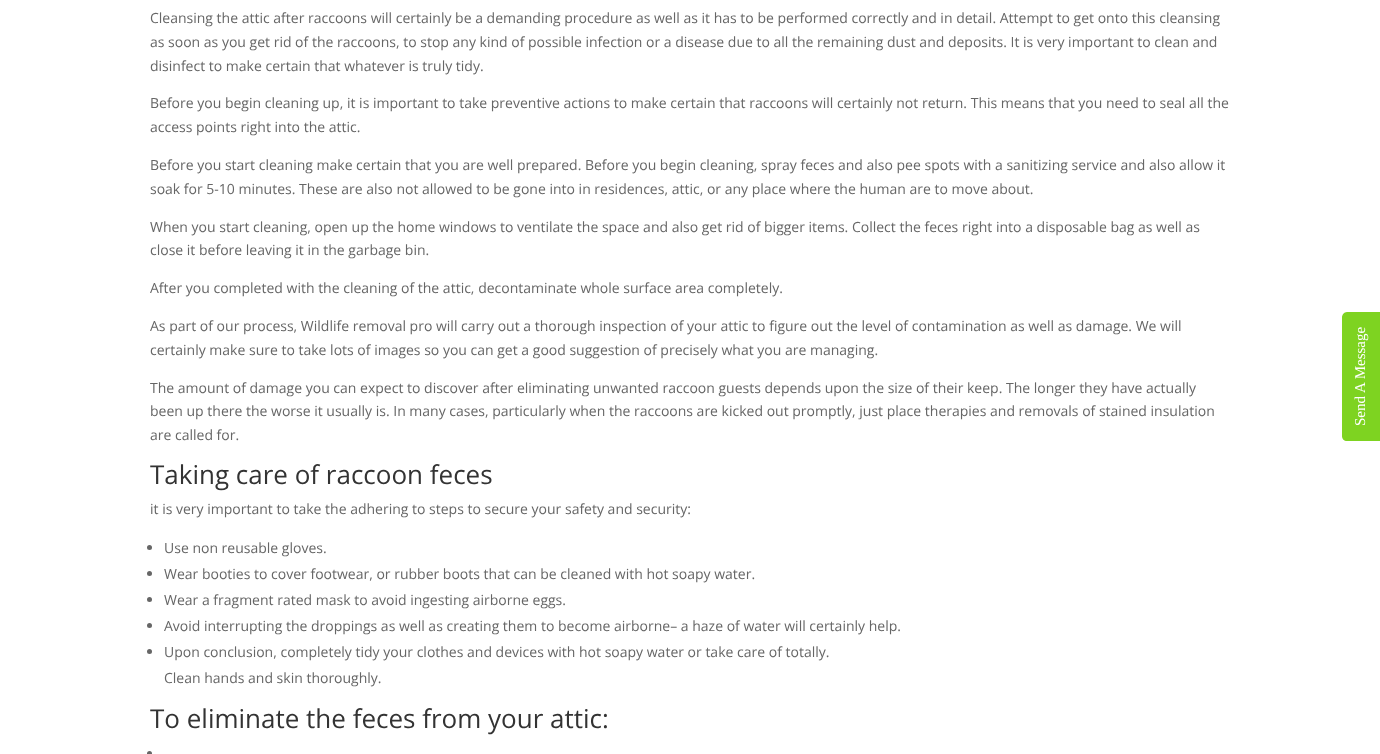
<svg xmlns="http://www.w3.org/2000/svg" width="1380" height="754" viewBox="0 0 1380 754">
  <rect width="100%" height="100%" fill="#fff"/>
  <circle cx="149.5" cy="547.5" r="2.5" fill="#666"/>
  <circle cx="149.5" cy="573.5" r="2.5" fill="#666"/>
  <circle cx="149.5" cy="599.5" r="2.5" fill="#666"/>
  <circle cx="149.5" cy="625.5" r="2.5" fill="#666"/>
  <circle cx="149.5" cy="651.5" r="2.5" fill="#666"/>
  <circle cx="149.5" cy="753.5" r="2.5" fill="#666"/>
  <path d="M1342 436V317C1342 315 1344 312 1347 312H1380V441H1347C1344 441 1342 439 1342 436Z" fill="#7ed321"/>
  <g font-family="Open Sans" font-size="14" fill="#666">
    <text x="150" y="23">Cleansing the attic after raccoons will certainly be a demanding procedure as well as it has to be performed correctly and in detail. Attempt to get onto this cleansing</text>
    <text x="150" y="47">as soon as you get rid of the raccoons, to stop any kind of possible infection or a disease due to all the remaining dust and deposits. It is very important to clean and</text>
    <text x="150" y="71">disinfect to make certain that whatever is truly tidy.</text>
    <text x="150" y="108">Before you begin cleaning up, it is important to take preventive actions to make certain that raccoons will certainly not return. This means that you need to seal all the</text>
    <text x="150" y="132">access points right into the attic.</text>
    <text x="150" y="170">Before you start cleaning make certain that you are well prepared. Before you begin cleaning, spray feces and also pee spots with a sanitizing service and also allow it</text>
    <text x="150" y="194">soak for 5-10 minutes. These are also not allowed to be gone into in residences, attic, or any place where the human are to move about.</text>
    <text x="150" y="232">When you start cleaning, open up the home windows to ventilate the space and also get rid of bigger items. Collect the feces right into a disposable bag as well as</text>
    <text x="150" y="255">close it before leaving it in the garbage bin.</text>
    <text x="150" y="293">After you completed with the cleaning of the attic, decontaminate whole surface area completely.</text>
    <text x="150" y="331">As part of our process, Wildlife removal pro will carry out a thorough inspection of your attic to figure out the level of contamination as well as damage. We will</text>
    <text x="150" y="355">certainly make sure to take lots of images so you can get a good suggestion of precisely what you are managing.</text>
    <text x="150" y="393">The amount of damage you can expect to discover after eliminating unwanted raccoon guests depends upon the size of their keep. The longer they have actually</text>
    <text x="150" y="416">been up there the worse it usually is. In many cases, particularly when the raccoons are kicked out promptly, just place therapies and removals of stained insulation</text>
    <text x="150" y="440">are called for.</text>
  </g>
  <text x="150" y="484" font-family="Open Sans" font-size="26" fill="#333">Taking care of raccoon feces</text>
  <g font-family="Open Sans" font-size="14" fill="#666">
    <text x="150" y="514">it is very important to take the adhering to steps to secure your safety and security:</text>
    <text x="164" y="553">Use non reusable gloves.</text>
    <text x="164" y="579">Wear booties to cover footwear, or rubber boots that can be cleaned with hot soapy water.</text>
    <text x="164" y="605">Wear a fragment rated mask to avoid ingesting airborne eggs.</text>
    <text x="164" y="631">Avoid interrupting the droppings as well as creating them to become airborne– a haze of water will certainly help.</text>
    <text x="164" y="657">Upon conclusion, completely tidy your clothes and devices with hot soapy water or take care of totally.</text>
    <text x="164" y="683">Clean hands and skin thoroughly.</text>
  </g>
  <text x="150" y="728" font-family="Open Sans" font-size="26" fill="#333">To eliminate the feces from your attic:</text>
  <text x="1365" y="426" transform="rotate(-90 1365 426)" font-family="Liberation Serif" font-size="15" fill="#fff">Send A Message</text>
</svg>
